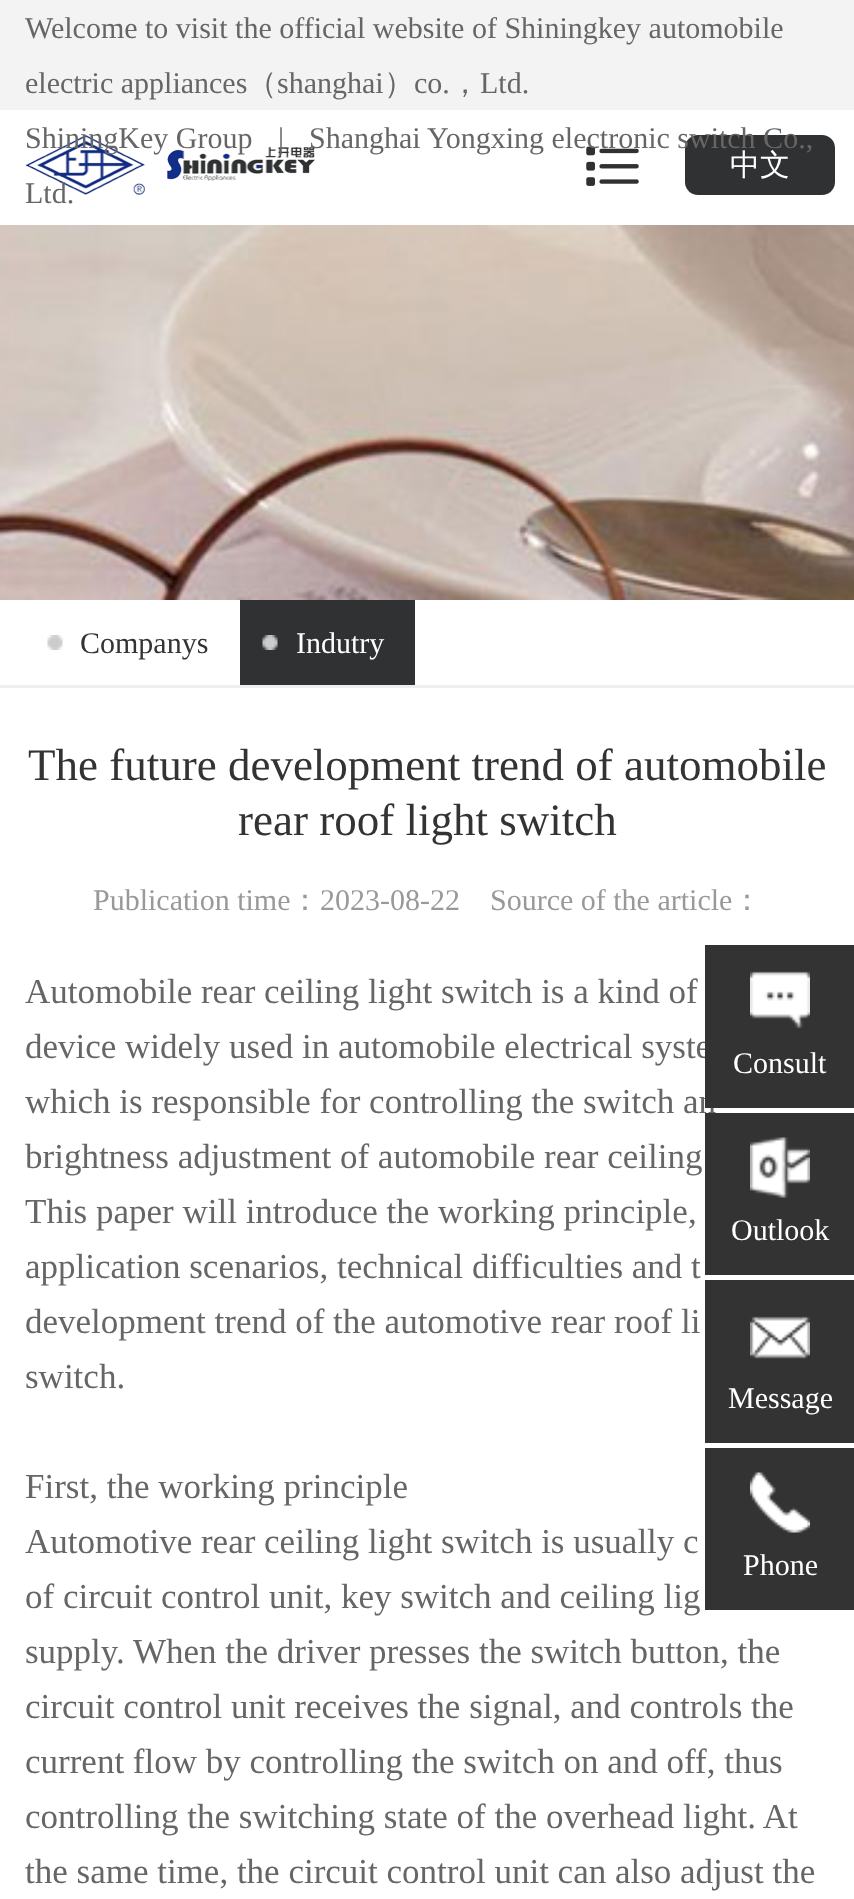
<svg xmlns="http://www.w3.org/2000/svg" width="854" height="1899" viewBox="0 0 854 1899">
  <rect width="100%" height="100%" fill="#fff"/>
  <path d="M0 0h854v110H0z" fill="#f3f3f3"/>
  <image x="25" y="135" width="290" height="60" href="img/1.png"/>
  <image x="586" y="146" width="53" height="40" href="img/2.png"/>
  <rect x="685" y="135" width="150" height="60" rx="13" fill="#2f3132"/>
  <image x="0" y="225" width="854" height="375" href="img/3.png"/>
  <path d="M0 685h854v3H0z" fill="#eee"/>
  <image x="47" y="635" width="16" height="15" href="img/4.png"/>
  <path d="M240 600h175v85H240z" fill="#2f3132"/>
  <image x="262" y="635" width="16" height="15" href="img/5.png"/>
  <path d="M705 1280h149v163H705z" fill="#333"/>
  <image x="750" y="1316" width="60" height="43" href="img/8.png"/>
  <path d="M705 1448h149v162H705z" fill="#333"/>
  <image x="750" y="1472" width="60" height="61" href="img/9.png"/>
  <g font-family="Liberation Serif" font-size="30" fill="#666">
    <text x="25" y="38">Welcome to visit the official website of Shiningkey automobile</text>
    <text x="25" y="93">electric appliances</text>
  </g>
  <text x="247" y="93" font-family="WenQuanYi Zen Hei" font-size="30" font-weight="500" fill="#666">（</text>
  <text x="277" y="93" font-family="Liberation Serif" font-size="30" fill="#666">shanghai</text>
  <text x="384" y="93" font-family="WenQuanYi Zen Hei" font-size="30" font-weight="500" fill="#666">）</text>
  <text x="414" y="93" font-family="Liberation Serif" font-size="30" fill="#666">co.</text>
  <text x="450" y="93" font-family="WenQuanYi Zen Hei" font-size="30" font-weight="500" fill="#666">，</text>
  <g font-family="Liberation Serif" font-size="30" fill="#666">
    <text x="480" y="93">Ltd.</text>
    <text x="25" y="148">ShiningKey Group</text>
    <text x="278" y="148">|</text>
    <text x="309" y="148">Shanghai Yongxing electronic switch Co.,</text>
    <text x="25" y="203">Ltd.</text>
  </g>
  <text x="730" y="175" font-family="WenQuanYi Zen Hei" font-size="30" font-weight="500" fill="#fff">中文</text>
  <text x="80" y="653" font-family="Liberation Serif" font-size="30" fill="#333">Companys</text>
  <text x="296" y="653" font-family="Liberation Serif" font-size="30" fill="#fff">Indutry</text>
  <g font-family="Liberation Serif" font-size="45" fill="#333">
    <text x="28" y="780">The future development trend of automobile</text>
    <text x="238" y="835">rear roof light switch</text>
  </g>
  <text x="93" y="910" font-family="Liberation Serif" font-size="30" fill="#999">Publication time</text>
  <text x="290" y="910" font-family="WenQuanYi Zen Hei" font-size="30" font-weight="500" fill="#999">：</text>
  <text x="320" y="910" font-family="Liberation Serif" font-size="30" fill="#999" xml:space="preserve">2023-08-22    Source of the article</text>
  <text x="732" y="910" font-family="WenQuanYi Zen Hei" font-size="30" font-weight="500" fill="#999">：</text>
  <g font-family="Liberation Serif" font-size="35" fill="#666">
    <text x="25" y="1003">Automobile rear ceiling light switch is a kind of</text>
    <text x="25" y="1058">device widely used in automobile electrical syste</text>
    <text x="25" y="1113">which is responsible for controlling the switch an</text>
    <text x="25" y="1168">brightness adjustment of automobile rear ceiling</text>
    <text x="25" y="1223">This paper will introduce the working principle,</text>
    <text x="25" y="1278">application scenarios, technical difficulties and t</text>
    <text x="25" y="1333">development trend of the automotive rear roof li</text>
    <text x="25" y="1388">switch.</text>
    <text x="25" y="1498">First, the working principle</text>
    <text x="25" y="1553">Automotive rear ceiling light switch is usually c</text>
    <text x="25" y="1608">of circuit control unit, key switch and ceiling lig</text>
    <text x="25" y="1663">supply. When the driver presses the switch button, the</text>
    <text x="25" y="1718">circuit control unit receives the signal, and controls the</text>
    <text x="25" y="1773">current flow by controlling the switch on and off, thus</text>
    <text x="25" y="1828">controlling the switching state of the overhead light. At</text>
    <text x="25" y="1883">the same time, the circuit control unit can also adjust the</text>
  </g>
  <path d="M705 945h149v163H705z" fill="#333"/>
  <image x="750" y="971" width="60" height="58" href="img/6.png"/>
  <text x="733" y="1073" font-family="Liberation Serif" font-size="30" fill="#fff">Consult</text>
  <path d="M705 1113h149v162H705z" fill="#333"/>
  <image x="750" y="1137" width="60" height="61" href="img/7.png"/>
  <g font-family="Liberation Serif" font-size="30" fill="#fff">
    <text x="731" y="1240">Outlook</text>
    <text x="728" y="1408">Message</text>
    <text x="743" y="1575">Phone</text>
  </g>
</svg>
